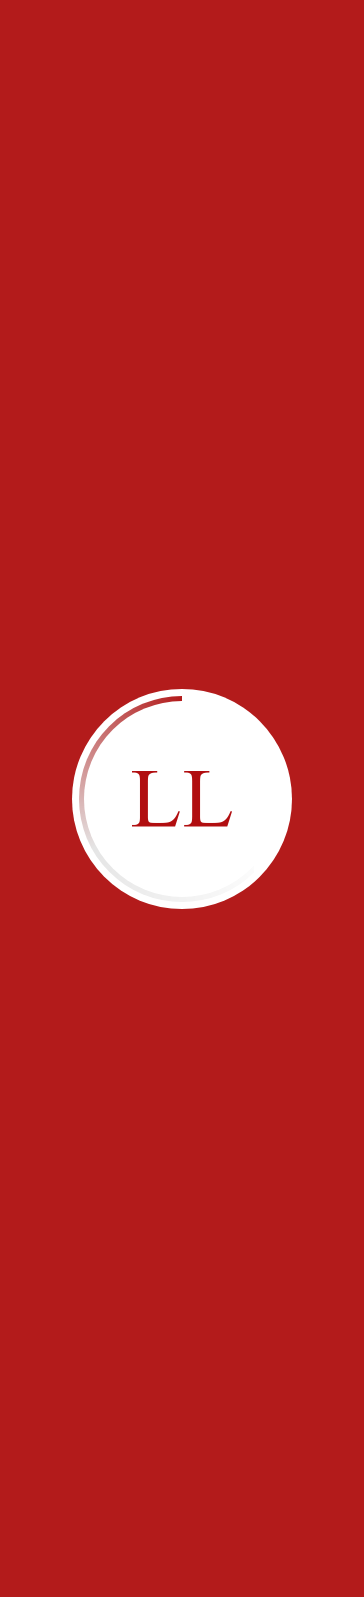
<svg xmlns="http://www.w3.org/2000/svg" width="364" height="1597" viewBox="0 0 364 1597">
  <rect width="100%" height="100%" fill="#b31b1b"/>
  <circle cx="182" cy="799" r="110" fill="#fff"/>
  <image x="79" y="696" width="175" height="206" href="img/1.png"/>
  <circle cx="182" cy="799" r="98" fill="#fff"/>
  <image x="132" y="771" width="100" height="56" href="img/2.png"/>
</svg>
